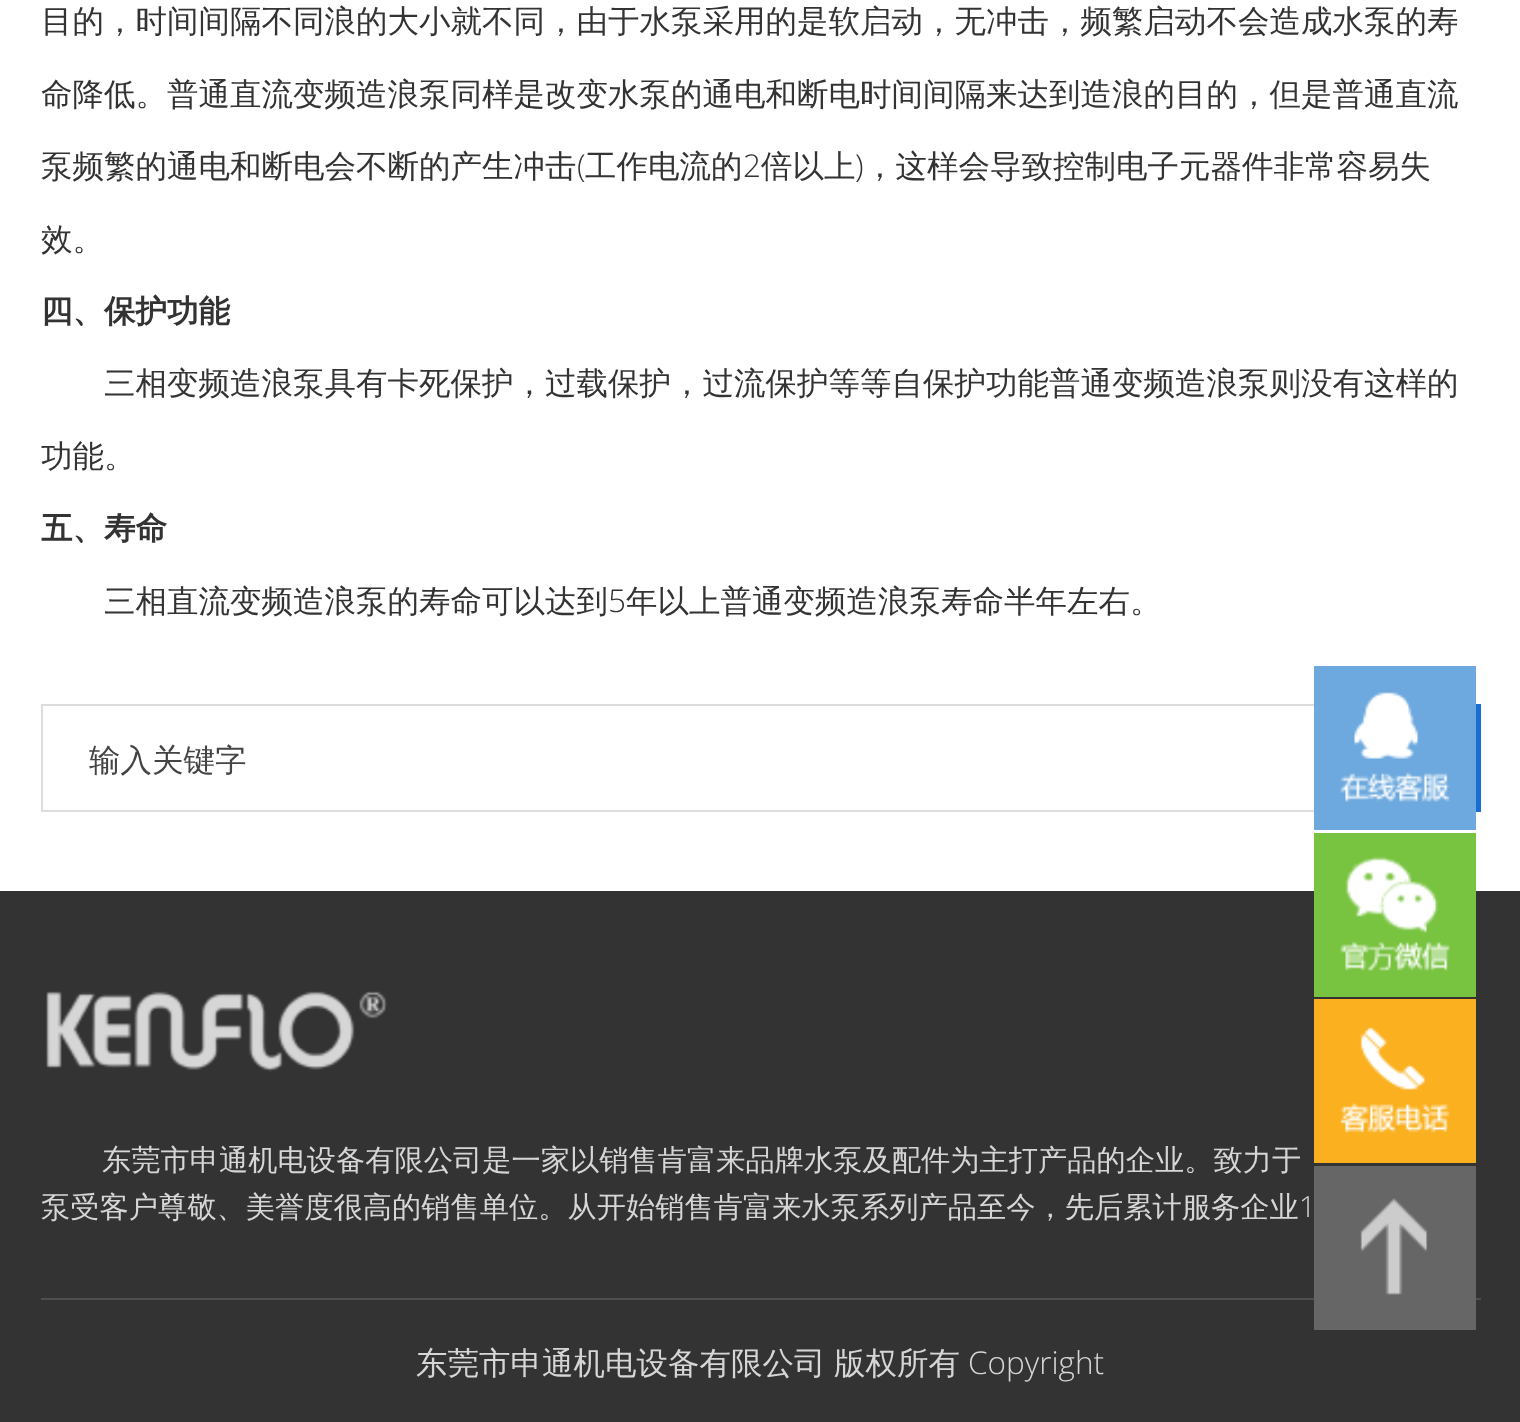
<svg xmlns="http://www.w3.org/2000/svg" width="1520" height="1422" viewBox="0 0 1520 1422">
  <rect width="100%" height="100%" fill="#fff"/>
  <path d="M41 704h1273v2H41z" fill="#ddd"/>
  <path d="M41 810h1273v2H41z" fill="#ddd"/>
  <path d="M41 704h2v108H41z" fill="#ddd"/>
  <path d="M1476 704h5v108H1476z" fill="#1b6dd0"/>
  <path d="M0 891h1520v531H0z" fill="#333"/>
  <image x="46" y="991" width="341" height="81" href="img/1.png"/>
  <path d="M41 1298h1440v2H41z" fill="#4e4e4e"/>
  <path d="M1314 666h162v164H1314z" fill="#6da9de"/>
  <image x="1340" y="692" width="110" height="110" href="img/2.png"/>
  <path d="M1314 833h162v164H1314z" fill="#78c340"/>
  <image x="1340" y="856" width="110" height="115" href="img/3.png"/>
  <path d="M1314 999h162v164H1314z" fill="#fbb01f"/>
  <image x="1340" y="1027" width="110" height="106" href="img/4.png"/>
  <path d="M1314 1166h162v164H1314z" fill="#666"/>
  <image x="1360" y="1198" width="68" height="97" href="img/5.png"/>
  <g font-family="WenQuanYi Zen Hei" font-size="31.5" font-weight="500" fill="#333">
    <text x="41" y="32">目的，时间间隔不同浪的大小就不同，由于水泵采用的是软启动，无冲击，频繁启动不会造成水泵的寿</text>
    <text x="41" y="105">命降低。普通直流变频造浪泵同样是改变水泵的通电和断电时间间隔来达到造浪的目的，但是普通直流</text>
    <text x="41" y="177">泵频繁的通电和断电会不断的产生冲击</text>
  </g>
  <text x="577" y="177" font-family="Open Sans" font-size="31.5" font-weight="300" fill="#333">(</text>
  <text x="585" y="177" font-family="WenQuanYi Zen Hei" font-size="31.5" font-weight="500" fill="#333">工作电流的</text>
  <text x="743" y="177" font-family="Open Sans" font-size="31.5" font-weight="300" fill="#333">2</text>
  <text x="761" y="177" font-family="WenQuanYi Zen Hei" font-size="31.5" font-weight="500" fill="#333">倍以上</text>
  <text x="855" y="177" font-family="Open Sans" font-size="31.5" font-weight="300" fill="#333">)</text>
  <g font-family="WenQuanYi Zen Hei" font-size="31.5" font-weight="500" fill="#333">
    <text x="864" y="177">，这样会导致控制电子元器件非常容易失</text>
    <text x="41" y="250">效。</text>
  </g>
  <text x="41" y="322" font-family="WenQuanYi Zen Hei" font-size="31.5" font-weight="bold" fill="#333">四、保护功能</text>
  <g font-family="WenQuanYi Zen Hei" font-size="31.5" font-weight="500" fill="#333">
    <text x="104" y="394">三相变频造浪泵具有卡死保护，过载保护，过流保护等等自保护功能普通变频造浪泵则没有这样的</text>
    <text x="41" y="467">功能。</text>
  </g>
  <text x="41" y="539" font-family="WenQuanYi Zen Hei" font-size="31.5" font-weight="bold" fill="#333">五、寿命</text>
  <text x="104" y="612" font-family="WenQuanYi Zen Hei" font-size="31.5" font-weight="500" fill="#333">三相直流变频造浪泵的寿命可以达到</text>
  <text x="608" y="612" font-family="Open Sans" font-size="31.5" font-weight="300" fill="#333">5</text>
  <text x="626" y="612" font-family="WenQuanYi Zen Hei" font-size="31.5" font-weight="500" fill="#333">年以上普通变频造浪泵寿命半年左右。</text>
  <text x="89" y="771" font-family="WenQuanYi Zen Hei" font-size="31.5" font-weight="500" fill="#444">输入关键字</text>
  <g font-family="WenQuanYi Zen Hei" font-size="29.25" font-weight="500" fill="#d6d6d6">
    <text x="102" y="1170">东莞市申通机电设备有限公司是一家以销售肯富来品牌水泵及配件为主打产品的企业。致力于</text>
    <text x="41" y="1217">泵受客户尊敬、美誉度很高的销售单位。从开始销售肯富来水泵系列产品至今，先后累计服务企业</text>
  </g>
  <text x="1299" y="1217" font-family="Open Sans" font-size="29.25" font-weight="300" fill="#d6d6d6">1</text>
  <text x="416" y="1374" word-spacing="-1" font-family="WenQuanYi Zen Hei" font-size="31.5" font-weight="500" fill="#d6d6d6">东莞市申通机电设备有限公司 版权所有</text>
  <text x="968" y="1374" font-family="Open Sans" font-size="31.5" font-weight="300" fill="#d6d6d6">Copyright</text>
</svg>
